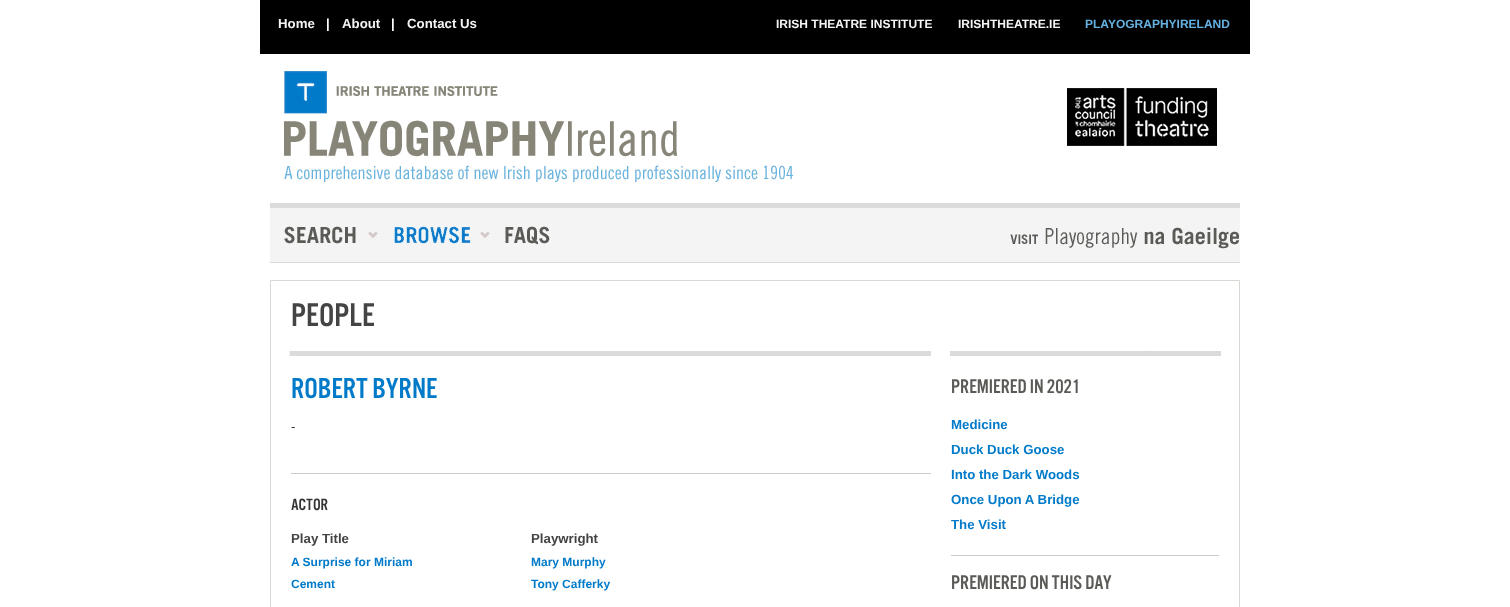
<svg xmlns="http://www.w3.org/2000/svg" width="1510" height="607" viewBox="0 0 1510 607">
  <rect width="100%" height="100%" fill="#fff"/>
  <path d="M260 0h990v54H260z" fill="#000"/>
  <image x="270" y="203" width="970" height="60" href="img/1.png"/>
  <image x="284" y="71" width="509" height="111" href="img/2.png"/>
  <image x="1067" y="88" width="150" height="58" href="img/3.png"/>
  <image x="284" y="226" width="94" height="18" href="img/4.png"/>
  <image x="394" y="226" width="96" height="18" href="img/5.png"/>
  <image x="505" y="226" width="45" height="19" href="img/6.png"/>
  <image x="1010" y="227" width="229" height="22" href="img/7.png"/>
  <image x="289" y="351" width="932" height="5" href="img/8.png"/>
  <path d="M270.5 280.5h969v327H270.5z" fill="none" stroke="#d9d9d3"/>
  <path d="M291 473h640v1H291z" fill="#ccc"/>
  <path d="M951 555h268v1H951z" fill="#ccc"/>
  <text x="278" y="28" font-family="Liberation Sans" font-size="13.25" font-weight="bold" fill="#f4f4f4">Home</text>
  <text x="326" y="28" font-family="Liberation Sans" font-size="13.25" font-weight="bold" fill="#fff">|</text>
  <text x="342" y="28" font-family="Liberation Sans" font-size="13.25" font-weight="bold" fill="#f4f4f4">About</text>
  <text x="391" y="28" font-family="Liberation Sans" font-size="13.25" font-weight="bold" fill="#fff">|</text>
  <text x="407" y="28" font-family="Liberation Sans" font-size="13.25" font-weight="bold" fill="#f4f4f4">Contact Us</text>
  <g font-family="Liberation Sans" font-size="12" font-weight="bold" fill="#f4f4f4">
    <text x="776" y="28">IRISH THEATRE INSTITUTE</text>
    <text x="958" y="28">IRISHTHEATRE.IE</text>
  </g>
  <text x="1085" y="28" font-family="Liberation Sans" font-size="12" font-weight="bold" fill="#65b2e2">PLAYOGRAPHYIRELAND</text>
  <text x="291" y="326" font-family="'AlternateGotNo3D'" font-size="34" fill="#444">PEOPLE</text>
  <text x="291" y="398" font-family="'AlternateGotNo3D'" font-size="30" fill="#017ac9">ROBERT BYRNE</text>
  <text x="291" y="431" font-family="Liberation Sans" font-size="13.25" fill="#333">-</text>
  <text x="291" y="510" font-family="'AlternateGotNo3D'" font-size="17" fill="#333">ACTOR</text>
  <g font-family="Liberation Sans" font-size="13.25" font-weight="bold" fill="#444">
    <text x="291" y="543">Play Title</text>
    <text x="531" y="543">Playwright</text>
  </g>
  <g font-family="Liberation Sans" font-size="12" font-weight="bold" fill="#017ac9">
    <text x="291" y="566">A Surprise for Miriam</text>
    <text x="531" y="566">Mary Murphy</text>
    <text x="291" y="588">Cement</text>
    <text x="531" y="588">Tony Cafferky</text>
  </g>
  <text x="951" y="393" font-family="'AlternateGotNo3D'" font-size="20.5" fill="#5a5b57">PREMIERED IN 2021</text>
  <g font-family="Liberation Sans" font-size="13.25" font-weight="bold" fill="#017ac9">
    <text x="951" y="429">Medicine</text>
    <text x="951" y="454">Duck Duck Goose</text>
    <text x="951" y="479">Into the Dark Woods</text>
    <text x="951" y="504">Once Upon A Bridge</text>
    <text x="951" y="529">The Visit</text>
  </g>
  <text x="951" y="589" font-family="'AlternateGotNo3D'" font-size="20.5" fill="#5a5b57">PREMIERED ON THIS DAY</text>
</svg>
